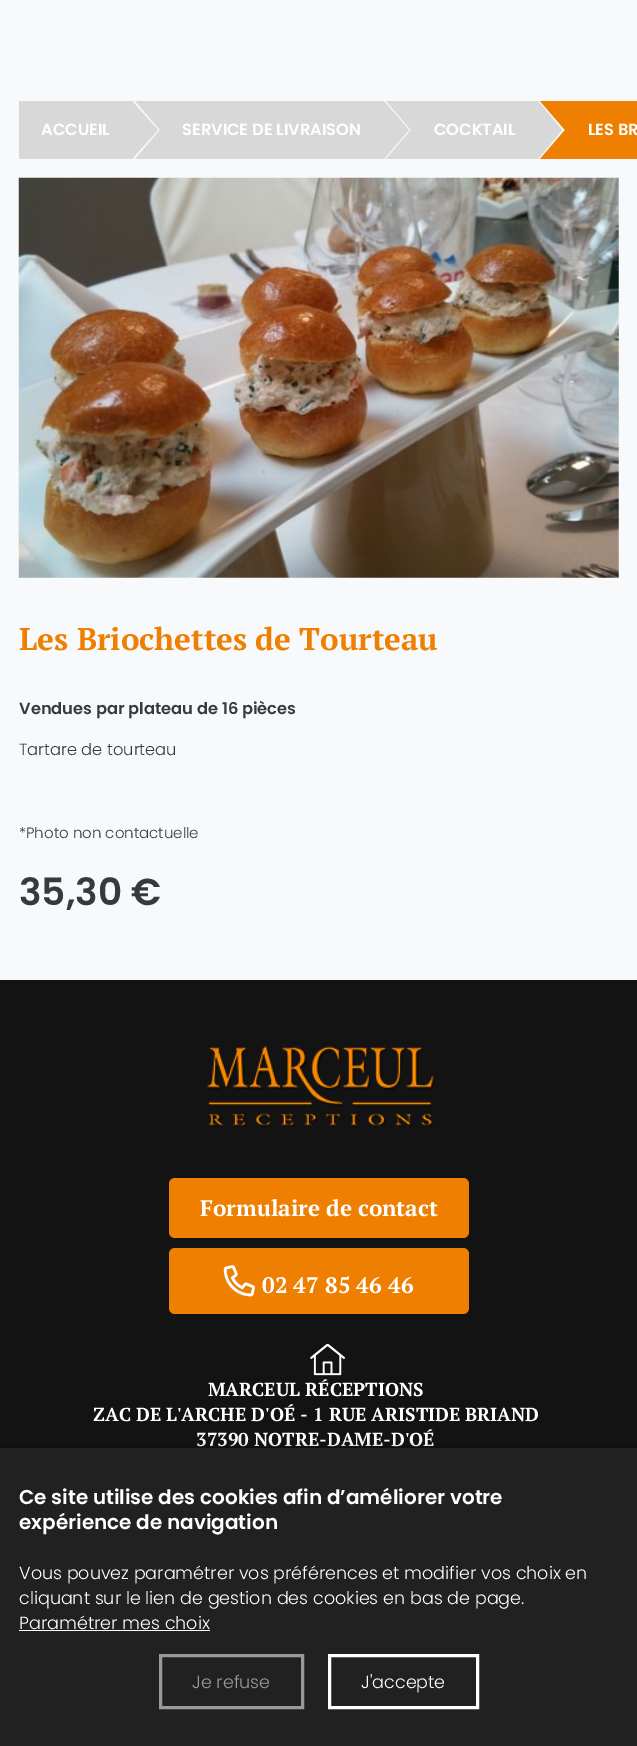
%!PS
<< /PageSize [637 1746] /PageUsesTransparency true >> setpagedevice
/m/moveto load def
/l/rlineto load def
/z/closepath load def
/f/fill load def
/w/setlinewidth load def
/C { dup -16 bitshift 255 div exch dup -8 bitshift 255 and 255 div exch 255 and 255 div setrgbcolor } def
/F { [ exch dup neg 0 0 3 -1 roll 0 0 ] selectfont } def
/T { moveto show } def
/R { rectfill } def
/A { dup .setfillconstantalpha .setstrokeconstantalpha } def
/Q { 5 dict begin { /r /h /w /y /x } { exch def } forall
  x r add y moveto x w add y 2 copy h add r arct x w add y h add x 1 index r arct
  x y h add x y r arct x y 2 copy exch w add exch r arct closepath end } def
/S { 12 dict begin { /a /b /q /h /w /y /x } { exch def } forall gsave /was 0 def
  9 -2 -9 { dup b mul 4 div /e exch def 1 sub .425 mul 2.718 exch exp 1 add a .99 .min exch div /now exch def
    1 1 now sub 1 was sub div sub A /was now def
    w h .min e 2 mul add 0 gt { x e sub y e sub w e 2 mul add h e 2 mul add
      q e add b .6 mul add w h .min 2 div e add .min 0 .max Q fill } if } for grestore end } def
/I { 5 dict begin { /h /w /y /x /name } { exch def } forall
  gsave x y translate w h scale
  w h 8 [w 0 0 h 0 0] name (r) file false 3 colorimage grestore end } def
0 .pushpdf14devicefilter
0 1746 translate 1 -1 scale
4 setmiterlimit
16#F8F9FA C
0 0 637 1746 R
16#D8D8D8 C
19 101 114 58 R
/Poppins-SemiBold 16.25 F
16#FFFFFF C
(ACCUEIL) 41 135 T
16#D8D8D8 C
132 159 m 0 -58 l 26 29 l z f
160 101 224 58 R
135 101 m 25 0 l 0 29 l z 160 159 m -25 0 l 25 -29 l z f
16#FFFFFF C
(SERVICE DE LIVRAISON) 182 135 T
16#D8D8D8 C
384 159 m 0 -58 l 25 29 l z f
411 101 127 58 R
386 101 m 25 0 l 0 29 l z 411 159 m -25 0 l 25 -29 l z f
16#FFFFFF C
(COCKTAIL) 434 135 T
16#D8D8D8 C
538 159 m 0 -58 l 24 29 l z f
16#EE7F00 C
565 101 72 58 R
540 101 m 25 0 l 0 29 l z 565 159 m -25 0 l 25 -29 l z f
16#FFFFFF C
(LES BR) 588 135 T
(1.rgb) 18 177 601 401 I
/PTSerif-Bold 31.25 F
16#EE7F00 C
(Les Briochettes de Tourteau) 19 650 T
/Poppins-SemiBold 16.25 F
16#353A3F C
(Vendues par plateau de 16 pièces) 19 714 T
/Poppins-Light 16.25 F
(Tartare de tourteau) 19 755 T
/Poppins-Light 15 F
(*Photo non contactuelle) 19 838 T
/Poppins-SemiBold 37.5 F
(35,30 €) 19 905 T
16#141313 C
0 980 637 468 R
(2.rgb) 207 1046 228 81 I
16#EE7F00 C
169 1178 300 60 6 Q f
/PTSerif-Bold 22.5 F
16#FFFFFF C
(Formulaire de contact) 200 1216 T
16#EE7F00 C
169 1248 300 66 6 Q f
(3.rgb) 223 1265 32 32 I
16#FFFFFF C
(02 47 85 46 46) 262 1293 T
(4.rgb) 310 1343 36 33 I
/PTSerif-Bold 18.75 F
(MARCEUL RÉCEPTIONS) 208 1396 T
(ZAC DE L'ARCHE D'OÉ - 1 RUE ARISTIDE BRIAND) 93 1421 T
(37390 NOTRE-DAME-D'OÉ) 196 1446 T
16#000000 C
0 1448 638 298 0 4 .4 S
16#212121 C
0 1448 637 298 R
/Poppins-SemiBold 20 F
16#FFFFFF C
(Ce site utilise des cookies afin d’améliorer votre) 19 1504 T
(expérience de navigation) 19 1529 T
/Poppins-Light 17.5 F
(Vous pouvez paramétrer vos préférences et modifier vos choix en) 19 1579 T
(cliquant sur le lien de gestion des cookies en bas de page.) 19 1604 T
(Paramétrer mes choix) 19 1629 T
19 1630 191 1 R
16#999999 C
3 w
160.5 1655.5 142 52 rectstroke
(Je refuse) 192 1688 T
16#FFFFFF C
329.5 1655.5 148 52 rectstroke
(J'accepte) 361 1688 T
.poppdf14devicefilter showpage
